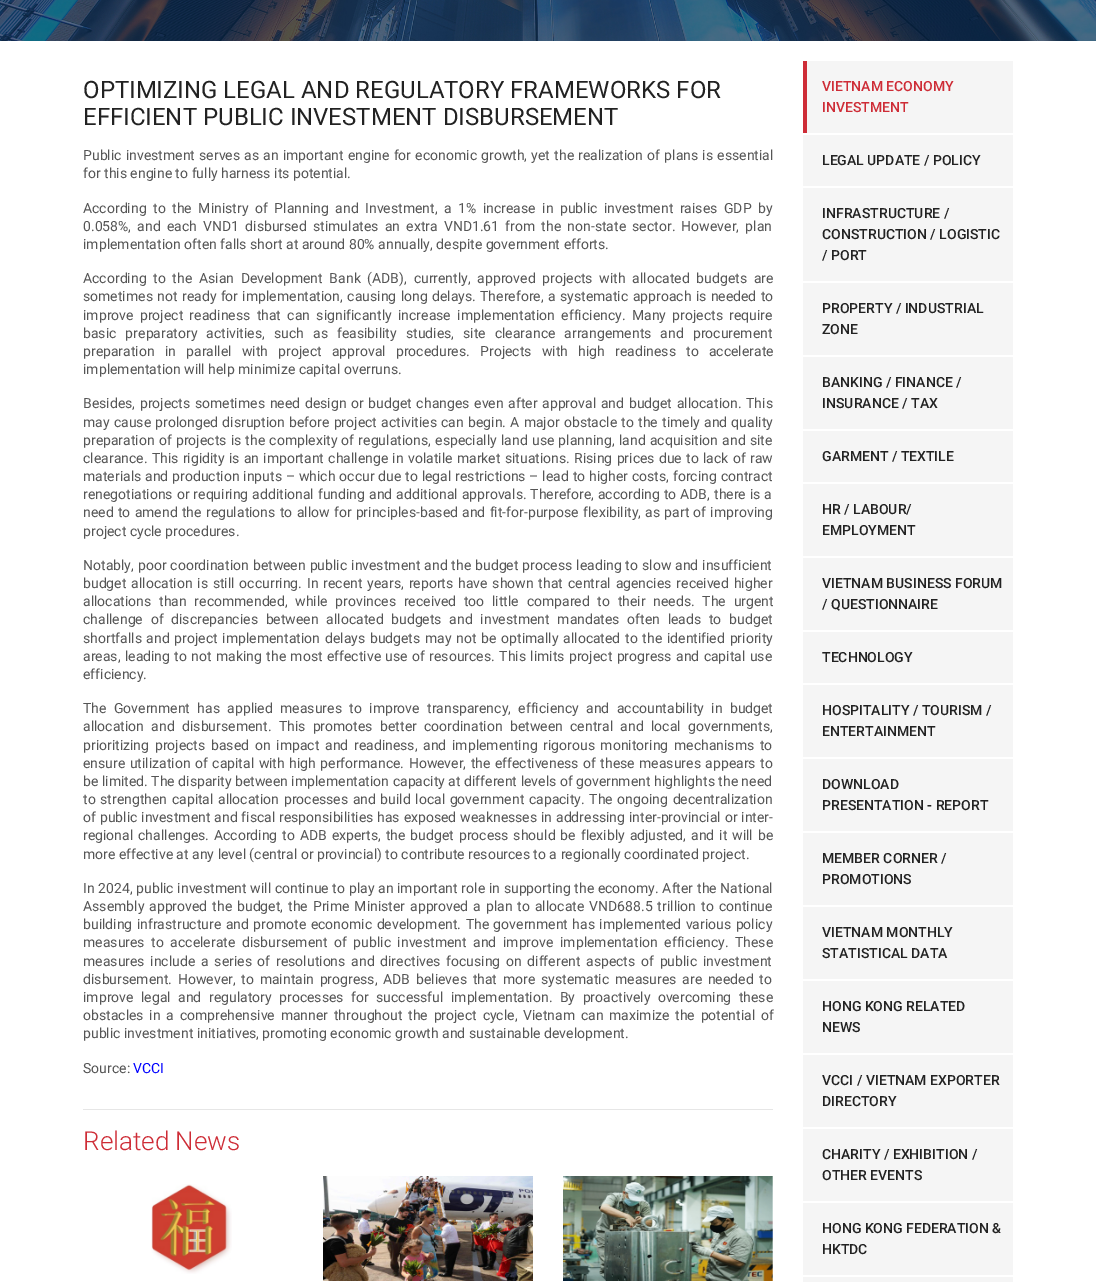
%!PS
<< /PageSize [1096 1282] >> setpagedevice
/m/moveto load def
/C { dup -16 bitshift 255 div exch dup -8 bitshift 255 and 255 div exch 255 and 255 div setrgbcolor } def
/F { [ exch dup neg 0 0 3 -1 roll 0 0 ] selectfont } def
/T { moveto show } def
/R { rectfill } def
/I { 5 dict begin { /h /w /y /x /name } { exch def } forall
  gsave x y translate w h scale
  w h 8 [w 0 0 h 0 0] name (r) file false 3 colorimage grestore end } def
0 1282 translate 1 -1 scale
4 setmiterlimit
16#FFFFFF C
0 0 1096 1282 R
(1.rgb) 0 0 1096 41 I
/Roboto-Regular 24 F
16#222222 C
(OPTIMIZING LEGAL AND REGULATORY FRAMEWORKS FOR) 83 98 T
(EFFICIENT PUBLIC INVESTMENT DISBURSEMENT) 83 125 T
/Roboto-Regular 14 F
16#555555 C
83 160 m .75 0 32 (Public investment serves as an important engine for economic growth, yet the realization of plans is essential) widthshow
(for this engine to fully harness its potential.) 83 178 T
83 213 m 3.1 0 32 (According to the Ministry of Planning and Investment, a 1% increase in public investment raises GDP by) widthshow
83 231 m 2.75 0 32 (0.058%, and each VND1 disbursed stimulates an extra VND1.61 from the non-state sector. However, plan) widthshow
(implementation often falls short at around 80% annually, despite government efforts.) 83 249 T
83 283 m 3.25 0 32 (According to the Asian Development Bank \(ADB\), currently, approved projects with allocated budgets are) widthshow
83 301 m .9 0 32 (sometimes not ready for implementation, causing long delays. Therefore, a systematic approach is needed to) widthshow
83 320 m 2.9 0 32 (improve project readiness that can significantly increase implementation efficiency. Many projects require) widthshow
83 338 m 5.6 0 32 (basic preparatory activities, such as feasibility studies, site clearance arrangements and procurement) widthshow
83 356 m 6.75 0 32 (preparation in parallel with project approval procedures. Projects with high readiness to accelerate) widthshow
(implementation will help minimize capital overruns.) 83 374 T
83 408 m 1.25 0 32 (Besides, projects sometimes need design or budget changes even after approval and budget allocation. This) widthshow
83 427 m .75 0 32 (may cause prolonged disruption before project activities can begin. A major obstacle to the timely and quality) widthshow
83 445 m .75 0 32 (preparation of projects is the complexity of regulations, especially land use planning, land acquisition and site) widthshow
83 463 m .8 0 32 (clearance. This rigidity is an important challenge in volatile market situations. Rising prices due to lack of raw) widthshow
83 481 m .4 0 32 (materials and production inputs – which occur due to legal restrictions – lead to higher costs, forcing contract) widthshow
83 499 m .5 0 32 (renegotiations or requiring additional funding and additional approvals. Therefore, according to ADB, there is a) widthshow
83 517 m .8 0 32 (need to amend the regulations to allow for principles-based and fit-for-purpose flexibility, as part of improving) widthshow
(project cycle procedures.) 83 536 T
83 570 m .5 0 32 (Notably, poor coordination between public investment and the budget process leading to slow and insufficient) widthshow
83 588 m 1.4 0 32 (budget allocation is still occurring. In recent years, reports have shown that central agencies received higher) widthshow
83 606 m 4.25 0 32 (allocations than recommended, while provinces received too little compared to their needs. The urgent) widthshow
83 624 m 4.25 0 32 (challenge of discrepancies between allocated budgets and investment mandates often leads to budget) widthshow
83 643 m 1.25 0 32 (shortfalls and project implementation delays budgets may not be optimally allocated to the identified priority) widthshow
83 661 m .9 0 32 (areas, leading to not making the most effective use of resources. This limits project progress and capital use) widthshow
(efficiency.) 83 679 T
83 713 m 3.9 0 32 (The Government has applied measures to improve transparency, efficiency and accountability in budget) widthshow
83 731 m 3.9 0 32 (allocation and disbursement. This promotes better coordination between central and local governments,) widthshow
83 750 m 2.25 0 32 (prioritizing projects based on impact and readiness, and implementing rigorous monitoring mechanisms to) widthshow
83 768 m 1 0 32 (ensure utilization of capital with high performance. However, the effectiveness of these measures appears to) widthshow
(be limited. The disparity between implementation capacity at different levels of government highlights the need) 83 786 T
83 804 m 1.1 0 32 (to strengthen capital allocation processes and build local government capacity. The ongoing decentralization) widthshow
83 822 m .4 0 32 (of public investment and fiscal responsibilities has exposed weaknesses in addressing inter-provincial or inter-) widthshow
83 840 m 1.5 0 32 (regional challenges. According to ADB experts, the budget process should be flexibly adjusted, and it will be) widthshow
(more effective at any level \(central or provincial\) to contribute resources to a regionally coordinated project.) 83 859 T
83 893 m .25 0 32 (In 2024, public investment will continue to play an important role in supporting the economy. After the National) widthshow
83 911 m 1.5 0 32 (Assembly approved the budget, the Prime Minister approved a plan to allocate VND688.5 trillion to continue) widthshow
83 929 m 1 0 32 (building infrastructure and promote economic development. The government has implemented various policy) widthshow
83 947 m 3.1 0 32 (measures to accelerate disbursement of public investment and improve implementation efficiency. These) widthshow
83 966 m 2.25 0 32 (measures include a series of resolutions and directives focusing on different aspects of public investment) widthshow
83 984 m 2.25 0 32 (disbursement. However, to maintain progress, ADB believes that more systematic measures are needed to) widthshow
83 1002 m 4 0 32 (improve legal and regulatory processes for successful implementation. By proactively overcoming these) widthshow
83 1020 m 2.25 0 32 (obstacles in a comprehensive manner throughout the project cycle, Vietnam can maximize the potential of) widthshow
(public investment initiatives, promoting economic growth and sustainable development.) 83 1038 T
(Source:) 83 1073 T
16#0000FF C
(VCCI) 133 1073 T
16#E6E6E6 C
83 1109 690 1 R
/Roboto-Light 26 F
16#CE2C36 C
(Related News) 83 1150 T
(2.rgb) 151 1184 81 90 I
(3.rgb) 323 1176 210 105 I
(4.rgb) 563 1176 210 105 I
16#F5F5F5 C
807 61 206 72 R
16#CE2C37 C
803 61 4 72 R
/Roboto-Medium 14 F
16#CE2C36 C
(VIETNAM ECONOMY) 822 91 T
(INVESTMENT) 822 112 T
16#F5F5F5 C
803 135 210 51 R
16#222222 C
(LEGAL UPDATE / POLICY) 822 165 T
16#F5F5F5 C
803 188 210 93 R
16#222222 C
(INFRASTRUCTURE /) 822 218 T
(CONSTRUCTION / LOGISTIC) 822 239 T
(/ PORT) 822 260 T
16#F5F5F5 C
803 283 210 72 R
16#222222 C
(PROPERTY / INDUSTRIAL) 822 313 T
(ZONE) 822 334 T
16#F5F5F5 C
803 357 210 72 R
16#222222 C
(BANKING / FINANCE /) 822 387 T
(INSURANCE / TAX) 822 408 T
16#F5F5F5 C
803 431 210 51 R
16#222222 C
(GARMENT / TEXTILE) 822 461 T
16#F5F5F5 C
803 484 210 72 R
16#222222 C
(HR / LABOUR/) 822 514 T
(EMPLOYMENT) 822 535 T
16#F5F5F5 C
803 558 210 72 R
16#222222 C
(VIETNAM BUSINESS FORUM) 822 588 T
(/ QUESTIONNAIRE) 822 609 T
16#F5F5F5 C
803 632 210 51 R
16#222222 C
(TECHNOLOGY) 822 662 T
16#F5F5F5 C
803 685 210 72 R
16#222222 C
(HOSPITALITY / TOURISM /) 822 715 T
(ENTERTAINMENT) 822 736 T
16#F5F5F5 C
803 759 210 72 R
16#222222 C
(DOWNLOAD) 822 789 T
(PRESENTATION - REPORT) 822 810 T
16#F5F5F5 C
803 833 210 72 R
16#222222 C
(MEMBER CORNER /) 822 863 T
(PROMOTIONS) 822 884 T
16#F5F5F5 C
803 907 210 72 R
16#222222 C
(VIETNAM MONTHLY) 822 937 T
(STATISTICAL DATA) 822 958 T
16#F5F5F5 C
803 981 210 72 R
16#222222 C
(HONG KONG RELATED) 822 1011 T
(NEWS) 822 1032 T
16#F5F5F5 C
803 1055 210 72 R
16#222222 C
(VCCI / VIETNAM EXPORTER) 822 1085 T
(DIRECTORY) 822 1106 T
16#F5F5F5 C
803 1129 210 72 R
16#222222 C
(CHARITY / EXHIBITION /) 822 1159 T
(OTHER EVENTS) 822 1180 T
16#F5F5F5 C
803 1203 210 72 R
16#222222 C
(HONG KONG FEDERATION &) 822 1233 T
(HKTDC) 822 1254 T
16#F5F5F5 C
803 1277 210 5 R
showpage
